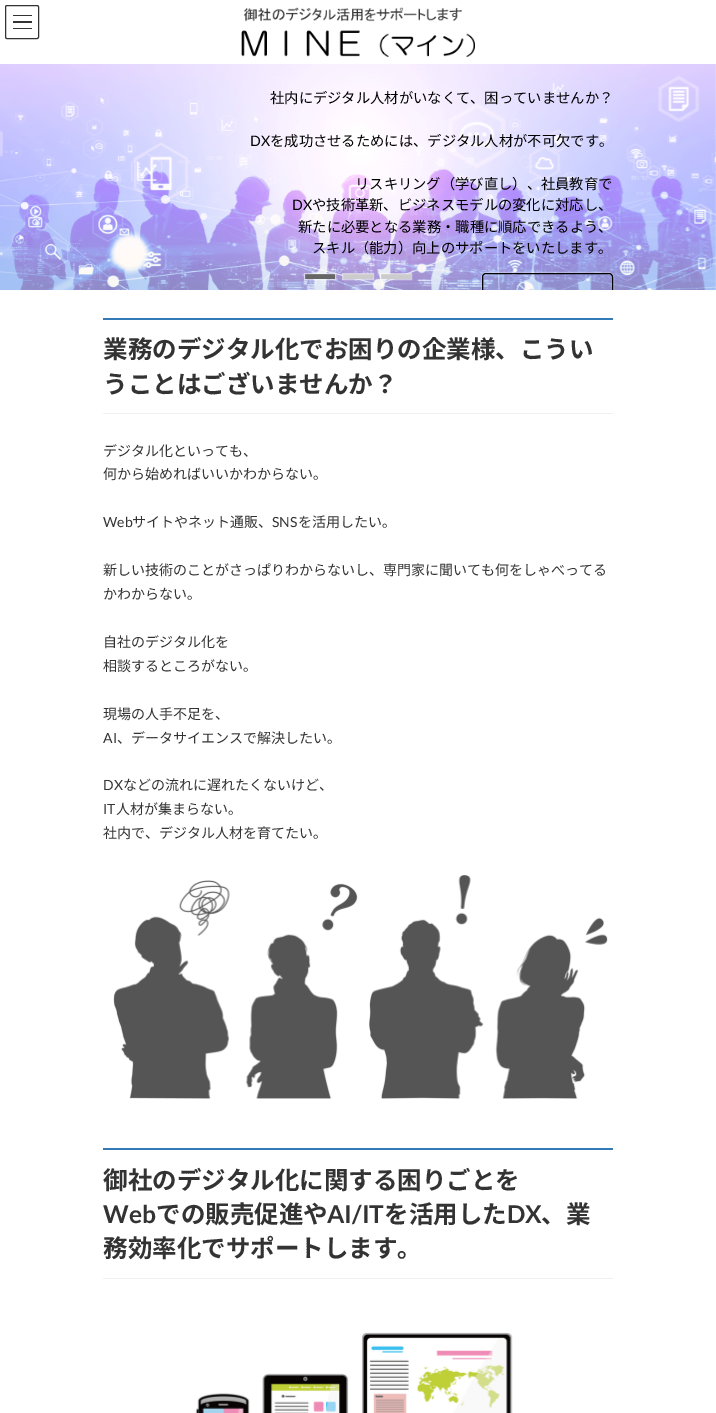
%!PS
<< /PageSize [716 1413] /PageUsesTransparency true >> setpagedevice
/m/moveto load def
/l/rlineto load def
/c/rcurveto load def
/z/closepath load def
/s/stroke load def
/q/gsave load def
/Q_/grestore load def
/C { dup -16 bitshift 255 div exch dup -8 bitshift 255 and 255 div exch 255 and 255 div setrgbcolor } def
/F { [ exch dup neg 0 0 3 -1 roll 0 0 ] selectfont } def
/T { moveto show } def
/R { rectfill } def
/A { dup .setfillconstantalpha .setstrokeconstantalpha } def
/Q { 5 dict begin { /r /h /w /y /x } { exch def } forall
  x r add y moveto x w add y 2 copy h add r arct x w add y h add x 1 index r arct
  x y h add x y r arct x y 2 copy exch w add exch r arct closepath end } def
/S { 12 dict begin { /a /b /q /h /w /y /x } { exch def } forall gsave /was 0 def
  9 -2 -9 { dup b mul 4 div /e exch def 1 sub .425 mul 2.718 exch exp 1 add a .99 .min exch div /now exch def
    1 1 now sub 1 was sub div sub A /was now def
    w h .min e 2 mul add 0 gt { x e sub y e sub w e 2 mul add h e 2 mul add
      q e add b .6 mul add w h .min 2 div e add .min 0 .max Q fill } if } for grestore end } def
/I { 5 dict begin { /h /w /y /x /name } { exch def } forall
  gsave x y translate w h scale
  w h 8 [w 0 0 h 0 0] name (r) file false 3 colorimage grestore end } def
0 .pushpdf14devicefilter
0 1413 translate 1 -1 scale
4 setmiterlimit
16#FFFFFF C
0 0 716 1413 R
16#333333 C
13 15 19 1 R
13 21 19 2 R
13 28 19 1 R
5.5 5.5 33 33 1.5 Q s
(1.rgb) 241 7 234 50 I
(2.rgb) 0 64 716 226 I
/NotoSansJP-Regular 14.3 F
16#000000 C
(社内にデジタル人材がいなくて、困っていませんか？) 270 103 T
/Lato-Regular 14.3 F
(DX) 250 146 T
/NotoSansJP-Regular 14.3 F
(を成功させるためには、デジタル人材が不可欠です。) 270 146 T
(リスキリング（学び直し）、社員教育で) 355 189 T
/Lato-Regular 14.3 F
(DX) 292 210 T
/NotoSansJP-Regular 14.3 F
(や技術革新、ビジネスモデルの変化に対応し、) 312 210 T
(新たに必要となる業務・職種に順応できるよう、) 298 232 T
(スキル（能力）向上のサポートをいたします。) 312 253 T
q
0 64 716 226 rectclip
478 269 m 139 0 l 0 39 l -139 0 l z 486 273 m 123 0 l 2 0 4 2 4 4 c 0 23 l 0 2 -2 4 -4 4 c -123 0 l -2 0 -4 -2 -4 -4 c 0 -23 l 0 -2 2 -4 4 -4 c z eoclip newpath
16#FFFFFF C
482 273 131 31 4 1 1 S
Q_
q
0 64 716 226 rectclip
482.5 273.5 130 30 3.5 Q s
Q_
16#666666 C
305 274 30 5 R
0.5 A
16#FFFFFF C
304.5 273.5 31 6 rectstroke
1 A
16#CCCCCC C
343 274 30 5 R
0.5 A
16#FFFFFF C
342.5 273.5 31 6 rectstroke
1 A
16#CCCCCC C
381 274 30 5 R
0.5 A
16#FFFFFF C
380.5 273.5 31 6 rectstroke
1 A
16#337AB7 C
103 318 510 2 R
16#F0F0F0 C
103 413 510 1 R
/NotoSansJP-Bold 24.5 F
16#333333 C
(業務のデジタル化でお困りの企業様、こうい) 103 358 T
(うことはございませんか？) 103 393 T
/NotoSansJP-Regular 14 F
(デジタル化といっても、) 103 456 T
(何から始めればいいかわからない。) 103 479 T
/Lato-Regular 14 F
(Web) 103 527 T
/NotoSansJP-Regular 14 F
(サイトやネット通販、) 132 527 T
/Lato-Regular 14 F
(SNS) 272 527 T
/NotoSansJP-Regular 14 F
(を活用したい。) 298 527 T
(新しい技術のことがさっぱりわからないし、専門家に聞いても何をしゃべってる) 103 575 T
(かわからない。) 103 599 T
(自社のデジタル化を) 103 647 T
(相談するところがない。) 103 671 T
(現場の人手不足を、) 103 719 T
/Lato-Regular 14 F
(AI) 103 743 T
/NotoSansJP-Regular 14 F
(、データサイエンスで解決したい。) 117 743 T
/Lato-Regular 14 F
(DX) 103 790 T
/NotoSansJP-Regular 14 F
(などの流れに遅れたくないけど、) 123 790 T
/Lato-Regular 14 F
(IT) 103 814 T
/NotoSansJP-Regular 14 F
(人材が集まらない。) 116 814 T
(社内で、デジタル人材を育てたい。) 103 838 T
(3.rgb) 113 875 495 224 I
16#337AB7 C
103 1148 510 2 R
16#F0F0F0 C
103 1278 510 1 R
/NotoSansJP-Bold 24.5 F
16#333333 C
(御社のデジタル化に関する困りごとを) 103 1189 T
/Lato-Bold 24.5 F
(Web) 103 1223 T
/NotoSansJP-Bold 24.5 F
(での販売促進や) 156 1223 T
/Lato-Bold 24.5 F
(AI/IT) 327 1223 T
/NotoSansJP-Bold 24.5 F
(を活用した) 384 1223 T
/Lato-Bold 24.5 F
(DX) 507 1223 T
/NotoSansJP-Bold 24.5 F
(、業) 541 1223 T
(務効率化でサポートします。) 103 1257 T
(4.rgb) 195 1332 318 81 I
.poppdf14devicefilter showpage
